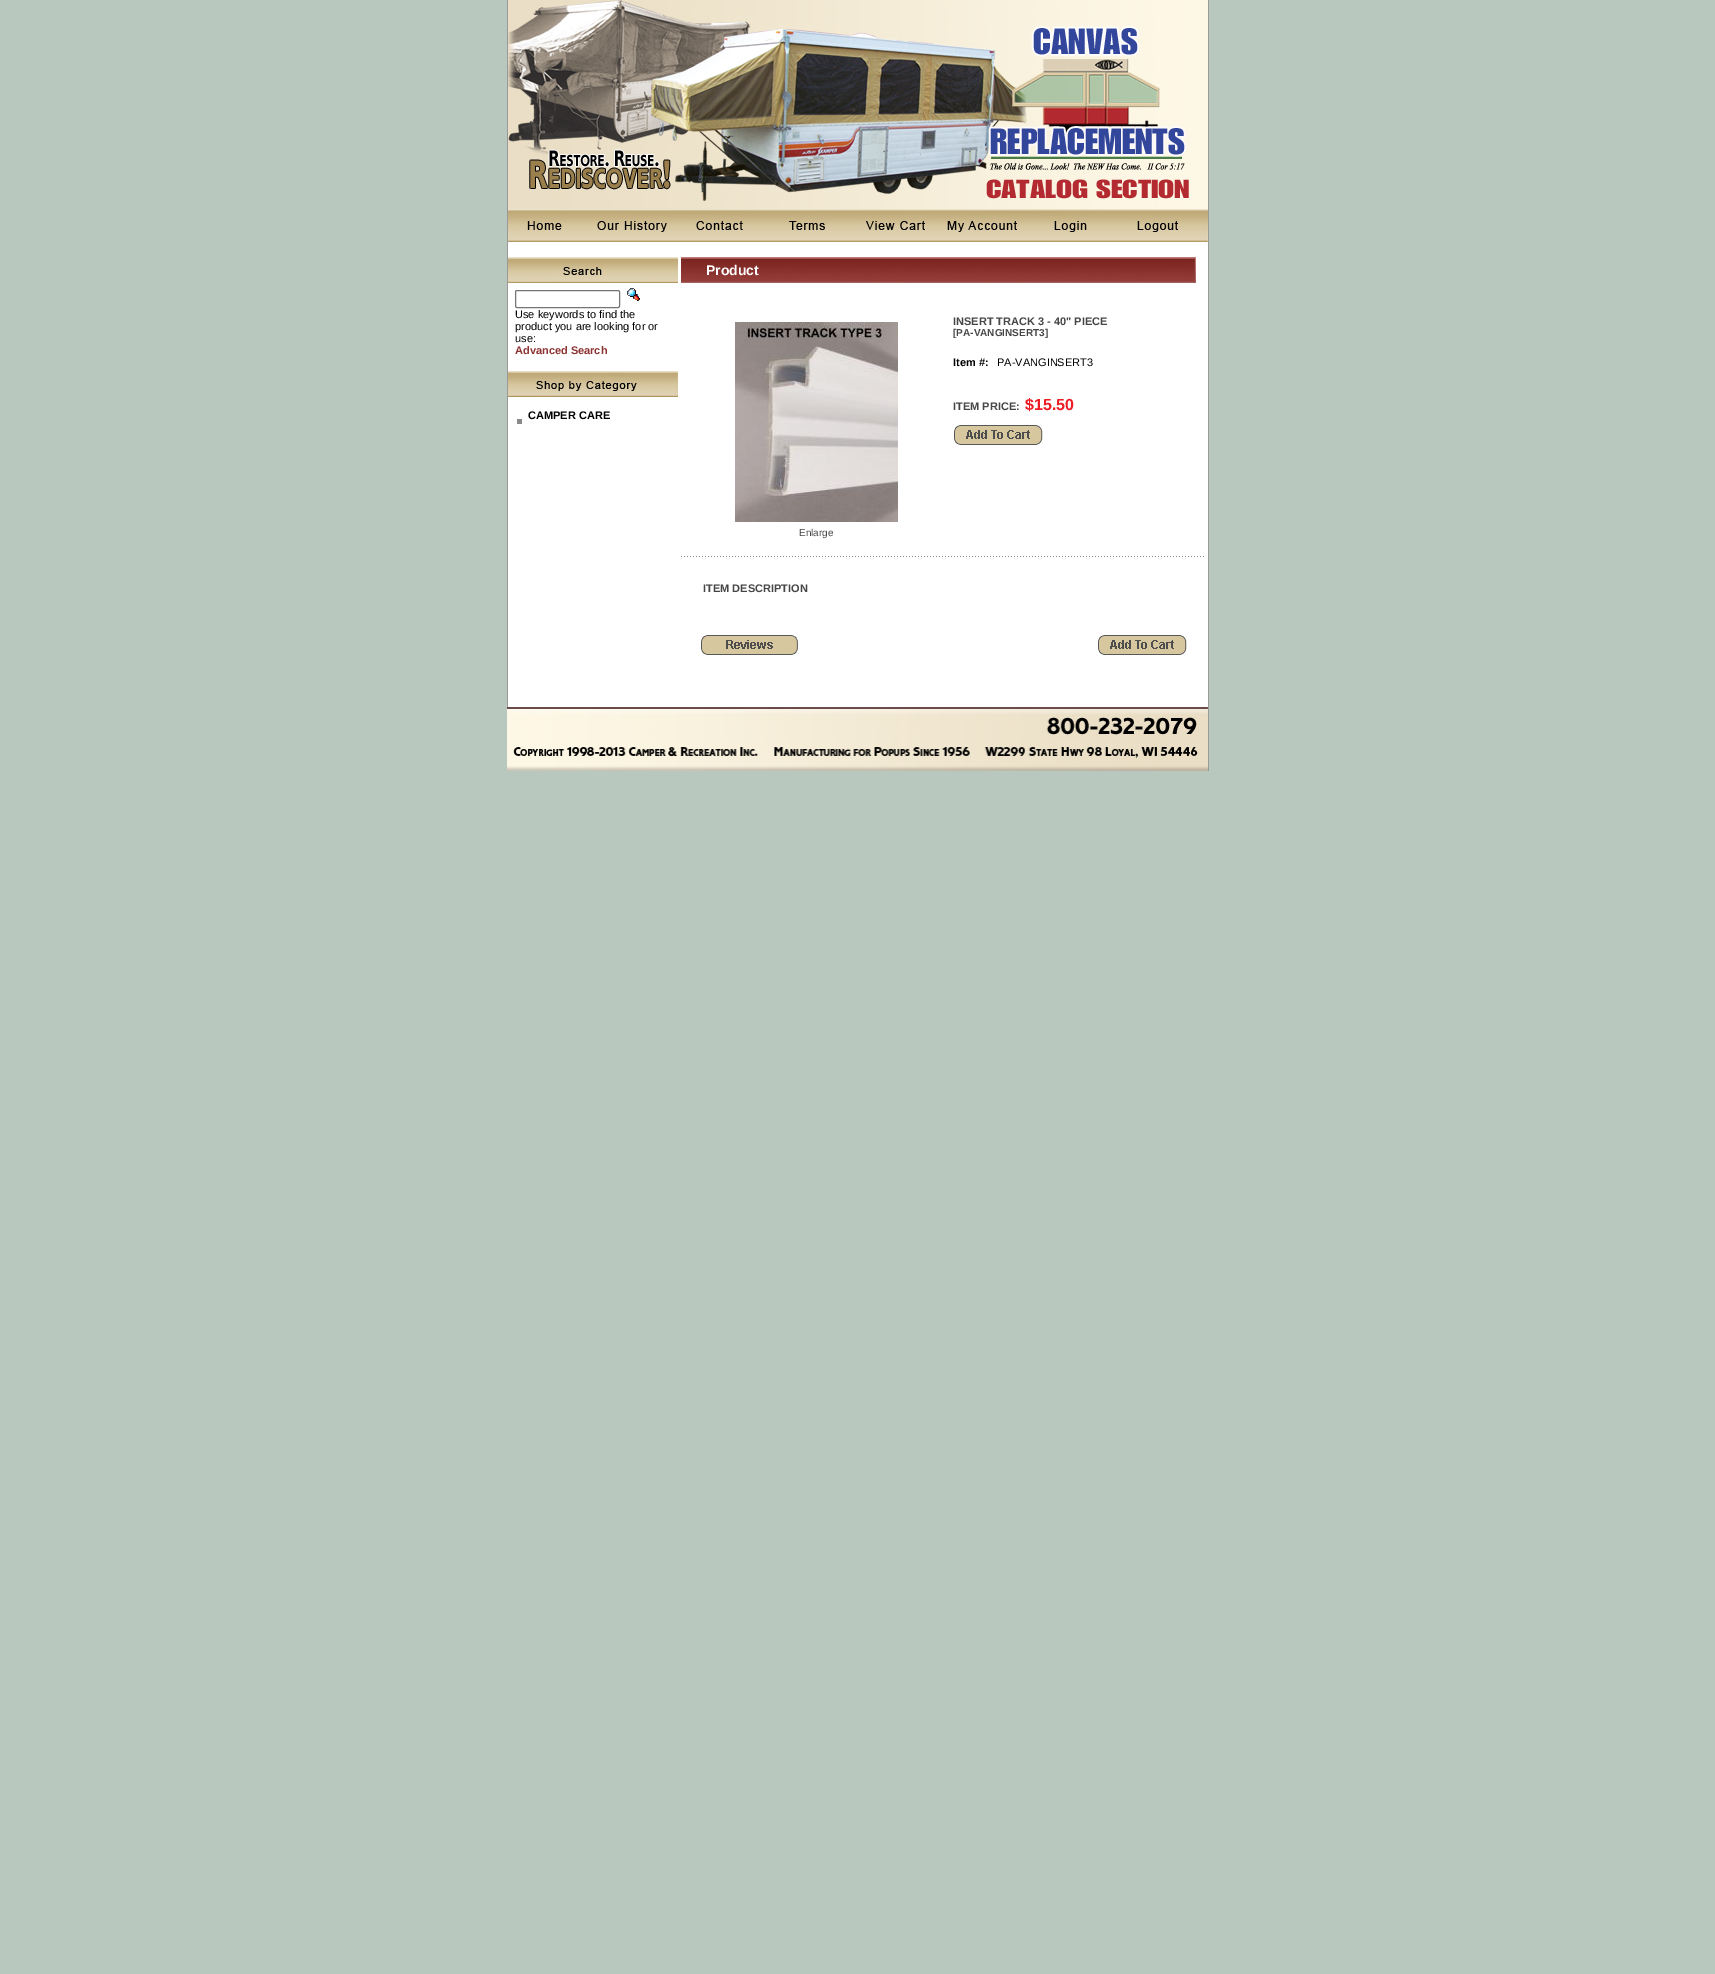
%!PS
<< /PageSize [1715 1974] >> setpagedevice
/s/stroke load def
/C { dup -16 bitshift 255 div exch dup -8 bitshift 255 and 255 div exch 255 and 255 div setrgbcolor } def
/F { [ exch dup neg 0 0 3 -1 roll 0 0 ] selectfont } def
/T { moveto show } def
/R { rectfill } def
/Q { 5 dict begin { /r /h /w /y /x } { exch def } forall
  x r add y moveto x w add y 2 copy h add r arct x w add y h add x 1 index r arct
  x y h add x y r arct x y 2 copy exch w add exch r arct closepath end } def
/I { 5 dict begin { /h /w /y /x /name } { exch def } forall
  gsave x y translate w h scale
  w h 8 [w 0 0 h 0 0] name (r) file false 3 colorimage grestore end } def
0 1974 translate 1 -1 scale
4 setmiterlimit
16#B8C8BE C
0 0 1715 1974 R
16#FFFFFF C
508 243 700 464 R
16#999999 C
507 0 1 707 R
(1.rgb) 508 0 700 209 I
(2.rgb) 508 209 700 34 I
(3.rgb) 508 257 170 26 I
16#767676 C
515.5 290.5 104 17 1.5 Q s
(4.rgb) 627 288 13 13 I
/LiberationSans-Regular 11 F
16#000000 C
(Use keywords to find the) 515 318 T
(product you are looking for or) 515 330 T
(use:) 515 342 T
/LiberationSans-Bold 11 F
16#8C3432 C
(Advanced Search) 515 354 T
(5.rgb) 508 371 170 26 I
16#000000 C
(CAMPER CARE) 528 419 T
16#898989 C
517 419 5 5 R
(6.rgb) 681 257 515 26 I
/LiberationSans-Bold 14 F
16#FFFFFF C
(Product) 706 275 T
/LiberationSans-Bold 11 F
16#464646 C
(INSERT TRACK 3 - 40" PIECE) 953 325 T
/LiberationSans-Bold 10 F
([PA-VANGINSERT3]) 953 336 T
/LiberationSans-Bold 11 F
16#000000 C
(Item #:) 953 366 T
/LiberationSans-Regular 11 F
(PA-VANGINSERT3) 997 366 T
/LiberationSans-Bold 11 F
16#464646 C
(ITEM PRICE:) 953 410 T
/LiberationSans-Bold 16 F
16#ED1B23 C
($15.50) 1025 410 T
(7.rgb) 954 425 89 20 I
(8.rgb) 735 322 163 200 I
/LiberationSans-Regular 10 F
16#464646 C
(Enlarge) 799 536 T
(9.rgb) 681 556 523 1 I
/LiberationSans-Bold 11 F
(ITEM DESCRIPTION) 703 592 T
(10.rgb) 701 635 97 20 I
(7.rgb) 1098 635 89 20 I
(11.rgb) 507 707 701 64 I
16#999999 C
1208 0 1 771 R
showpage
